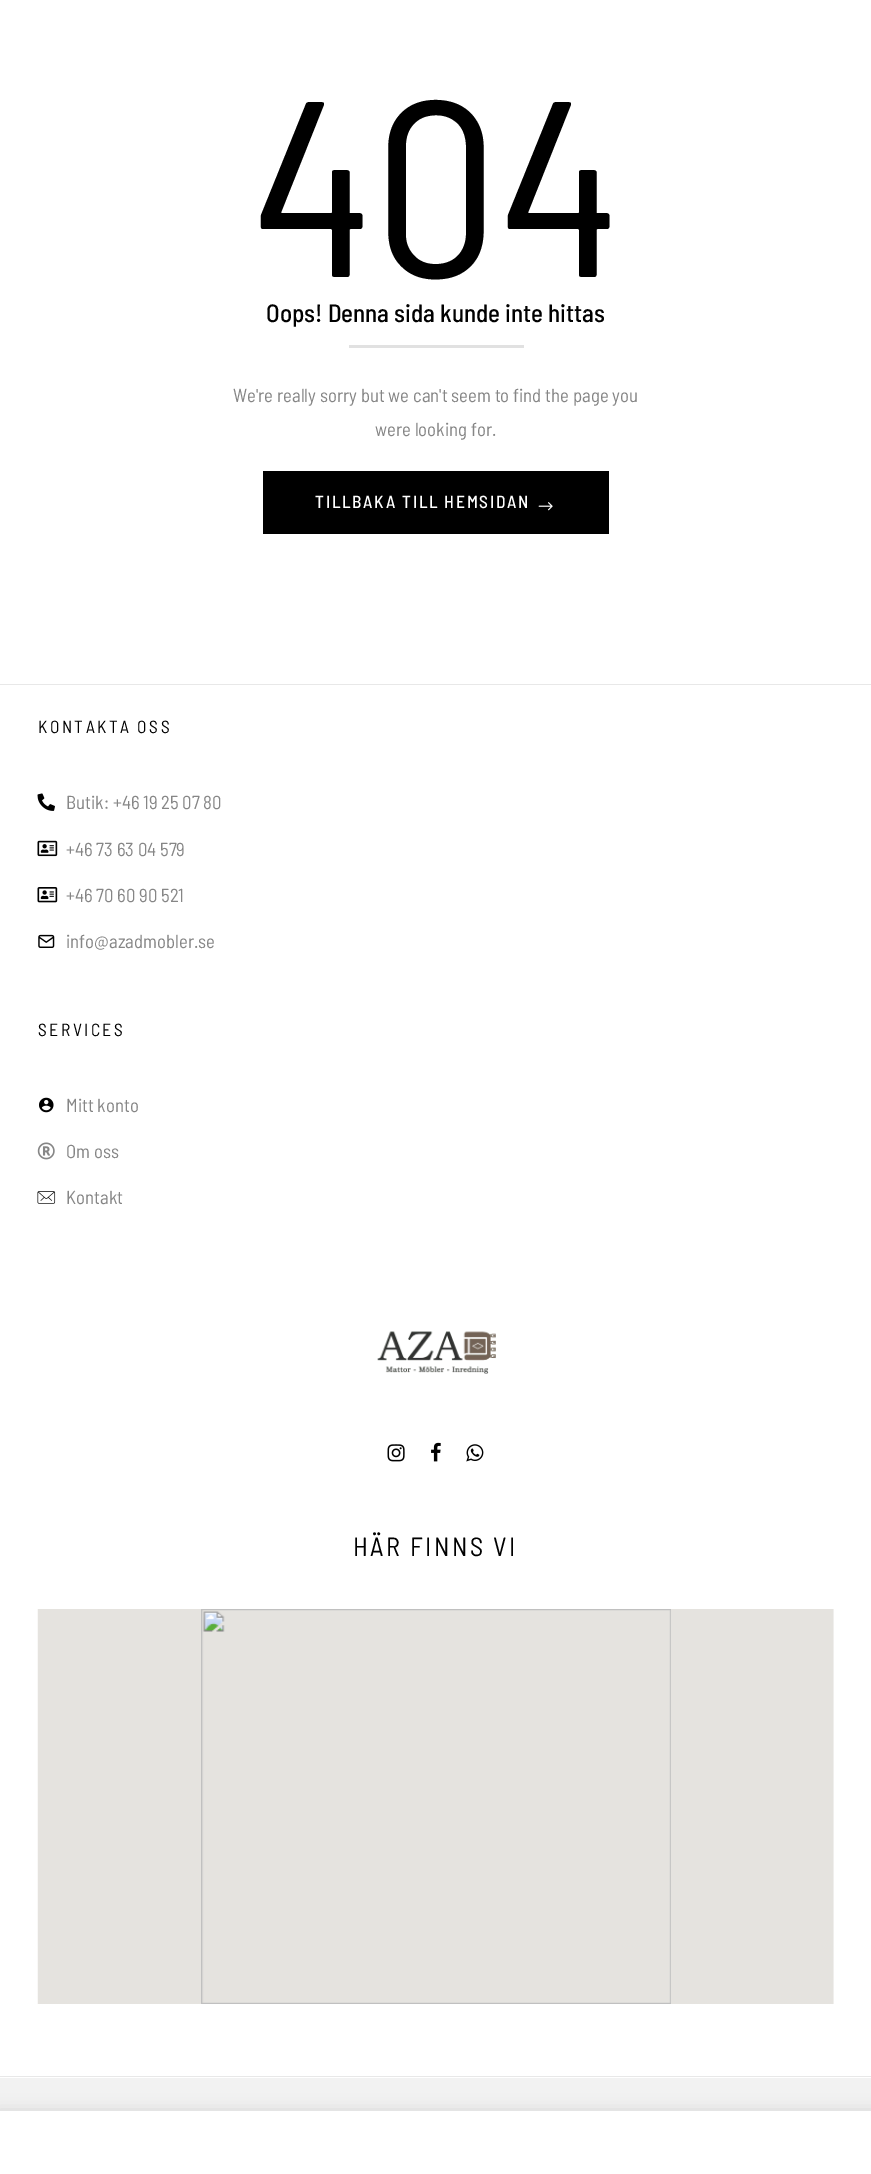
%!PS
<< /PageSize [871 2174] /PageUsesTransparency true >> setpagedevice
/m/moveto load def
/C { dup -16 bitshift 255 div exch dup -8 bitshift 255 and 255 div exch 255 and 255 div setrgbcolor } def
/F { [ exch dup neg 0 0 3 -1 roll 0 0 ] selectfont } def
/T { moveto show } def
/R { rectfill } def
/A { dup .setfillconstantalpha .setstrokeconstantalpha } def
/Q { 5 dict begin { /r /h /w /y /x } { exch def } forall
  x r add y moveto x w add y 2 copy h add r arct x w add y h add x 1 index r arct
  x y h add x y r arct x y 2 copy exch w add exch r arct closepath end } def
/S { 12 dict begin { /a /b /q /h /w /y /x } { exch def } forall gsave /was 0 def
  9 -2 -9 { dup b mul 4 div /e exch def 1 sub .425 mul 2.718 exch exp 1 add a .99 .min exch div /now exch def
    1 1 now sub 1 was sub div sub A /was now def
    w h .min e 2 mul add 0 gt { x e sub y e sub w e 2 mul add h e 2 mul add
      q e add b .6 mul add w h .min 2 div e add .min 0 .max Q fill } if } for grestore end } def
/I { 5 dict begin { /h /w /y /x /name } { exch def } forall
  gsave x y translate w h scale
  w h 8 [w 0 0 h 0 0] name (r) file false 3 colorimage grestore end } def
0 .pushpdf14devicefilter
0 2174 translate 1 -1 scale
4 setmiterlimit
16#FFFFFF C
0 0 871 2174 R
/BarlowSemiCondensed-Regular 250 F
16#000000 C
(404) 252 277 T
/BarlowSemiCondensed-Medium 25 F
(Oops! Denna sida kunde inte hittas) 266 322 T
16#E1E1E1 C
349 345 175 3 R
/BarlowSemiCondensed-Regular 18.75 F
16#868686 C
(We're really sorry but we can't seem to find the page you) 233 402 T
(were looking for.) 375 436 T
16#000000 C
263 471 346 63 R
/BarlowSemiCondensed-Medium 17.5 F
16#FFFFFF C
315 508 m 1.75 0 (TILLBAKA TILL HEMSIDAN) ashow
(1.rgb) 538 502 15 9 I
16#E8E8E8 C
0 684 871 1 R
0 2076 871 1 R
/BarlowSemiCondensed-Regular 17.5 F
16#000000 C
38 733 m 2.5 0 (KONTAKTA OSS) ashow
(2.rgb) 37 793 18 18 I
/BarlowSemiCondensed-Regular 18.75 F
16#868686 C
(Butik: +46 19 25 07 80) 66 809 T
(3.rgb) 37 840 21 17 I
(+46 73 63 04 579) 66 856 T
(4.rgb) 37 887 21 16 I
(+46 70 60 90 521) 66 902 T
(5.rgb) 38 934 17 14 I
(info@azadmobler.se) 66 948 T
/BarlowSemiCondensed-Regular 17.5 F
16#000000 C
38 1036 m 2.5 0 (SERVICES) ashow
(6.rgb) 39 1097 15 16 I
/BarlowSemiCondensed-Regular 18.75 F
16#868686 C
(Mitt konto) 66 1112 T
(7.rgb) 37 1142 18 18 I
(Om oss) 66 1158 T
(8.rgb) 37 1191 19 13 I
(Kontakt) 66 1204 T
(9.rgb) 377 1331 119 43 I
(10.rgb) 387 1444 18 18 I
(11.rgb) 431 1442 10 20 I
(12.rgb) 466 1444 18 18 I
/BarlowSemiCondensed-Regular 26.25 F
16#000000 C
353 1556 m 2.5 0 (HÄR FINNS VI) ashow
(13.rgb) 37 1609 797 395 I
16#F2F2F2 C
0 2078 871 33 R
16#8F8F8F C
-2 2110 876 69 0 7.5 .3 S
16#FFFFFF C
0 2111 871 63 R
.poppdf14devicefilter showpage
